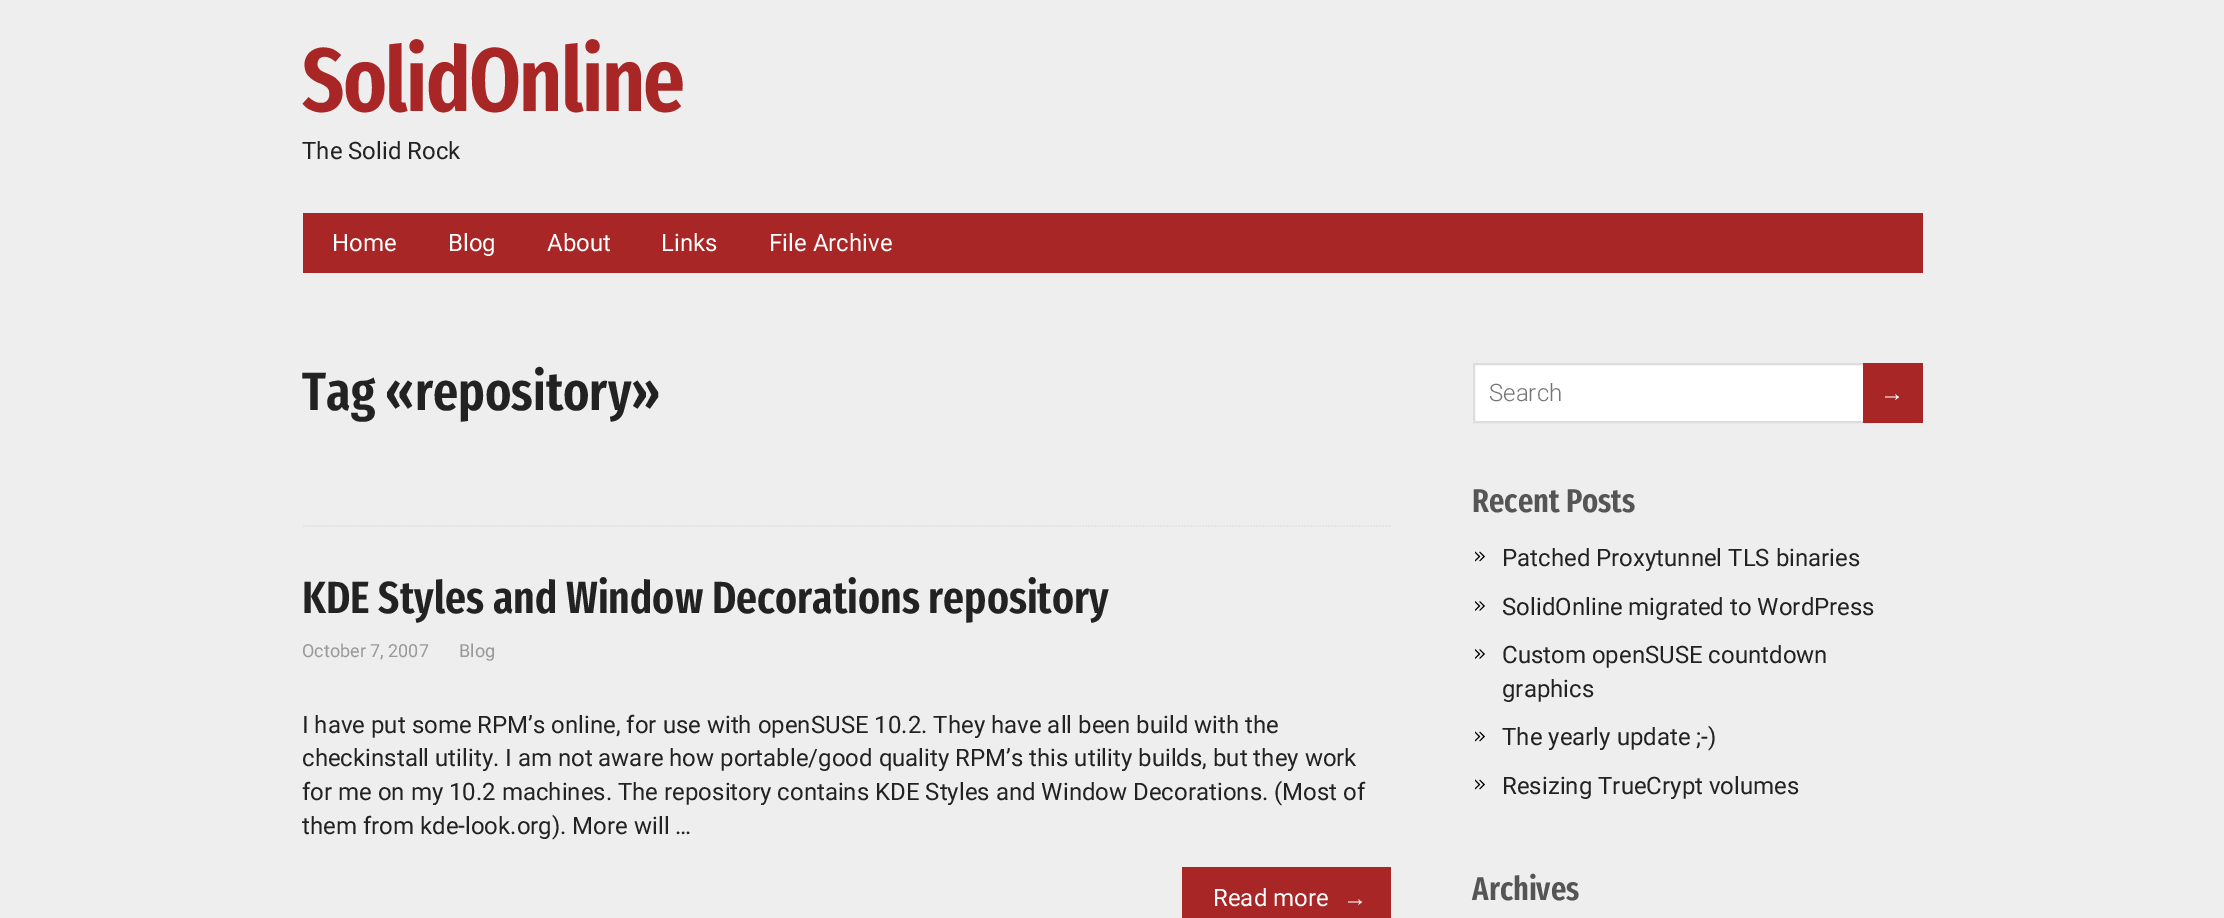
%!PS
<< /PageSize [2224 918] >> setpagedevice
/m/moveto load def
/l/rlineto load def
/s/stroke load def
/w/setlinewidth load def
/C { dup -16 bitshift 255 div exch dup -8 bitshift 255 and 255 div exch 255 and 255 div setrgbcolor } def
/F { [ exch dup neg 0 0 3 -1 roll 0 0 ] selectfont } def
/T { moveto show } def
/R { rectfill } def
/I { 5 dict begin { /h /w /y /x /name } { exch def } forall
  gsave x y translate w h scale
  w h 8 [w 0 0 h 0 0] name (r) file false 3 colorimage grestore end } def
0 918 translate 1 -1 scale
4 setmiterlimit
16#EEEEEE C
0 0 2224 918 R
/FiraSansExtraCondensed-SemiBold 90 F
16#A82626 C
302 111 m -1.75 0 (SolidOnline) ashow
/Roboto-Regular 24 F
16#222222 C
(The Solid Rock) 302 159 T
16#A82626 C
303 213 1620 60 R
16#FFFFFF C
(Home) 332 251 T
(Blog) 448 251 T
(About) 547 251 T
(Links) 661 251 T
(File Archive) 769 251 T
16#E2E2E2 C
1.5 w
[1.5 1.5] 0 setdash
303 526 m 1087.5 0 l s
/FiraSansExtraCondensed-SemiBold 54 F
16#222222 C
(Tag «repository») 302 410 T
/FiraSansExtraCondensed-SemiBold 45 F
(KDE Styles and Window Decorations repository) 302 613 T
/Roboto-Regular 18 F
16#999999 C
(October 7, 2007) 302 657 T
(Blog) 459 657 T
/Roboto-Regular 24 F
16#222222 C
(I have put some RPM’s online, for use with openSUSE 10.2. They have all been build with the) 302 733 T
(checkinstall utility. I am not aware how portable/good quality RPM’s this utility builds, but they work) 302 766 T
(for me on my 10.2 machines. The repository contains KDE Styles and Window Decorations. \(Most of) 302 800 T
(them from kde-look.org\). More will …) 302 834 T
16#A82626 C
1182 867 209 51 R
16#FFFFFF C
(Read more) 1213 906 T
/LiberationSans-Regular 24 F
(→) 1343 906 T
1475 365 388 56 R
16#DDDDDD C
2 w
[] 0 setdash
1474 364 436 58 rectstroke
/Roboto-Light 24 F
16#757575 C
(Search) 1489 401 T
16#A82626 C
1863 363 60 60 R
/LiberationSans-Regular 24 F
16#FFFFFF C
(→) 1880 401 T
/FiraSansExtraCondensed-SemiBold 33 F
16#555555 C
(Recent Posts) 1472 512 T
(1.rgb) 1475 551 10 11 I
/Roboto-Regular 24 F
16#222222 C
(Patched Proxytunnel TLS binaries) 1502 566 T
(2.rgb) 1475 601 10 10 I
(SolidOnline migrated to WordPress) 1502 615 T
(2.rgb) 1475 649 10 10 I
(Custom openSUSE countdown) 1502 663 T
(graphics) 1502 697 T
(1.rgb) 1475 731 10 11 I
(The yearly update ;-\)) 1502 745 T
(1.rgb) 1475 779 10 11 I
(Resizing TrueCrypt volumes) 1502 794 T
/FiraSansExtraCondensed-SemiBold 33 F
16#555555 C
(Archives) 1472 900 T
showpage
